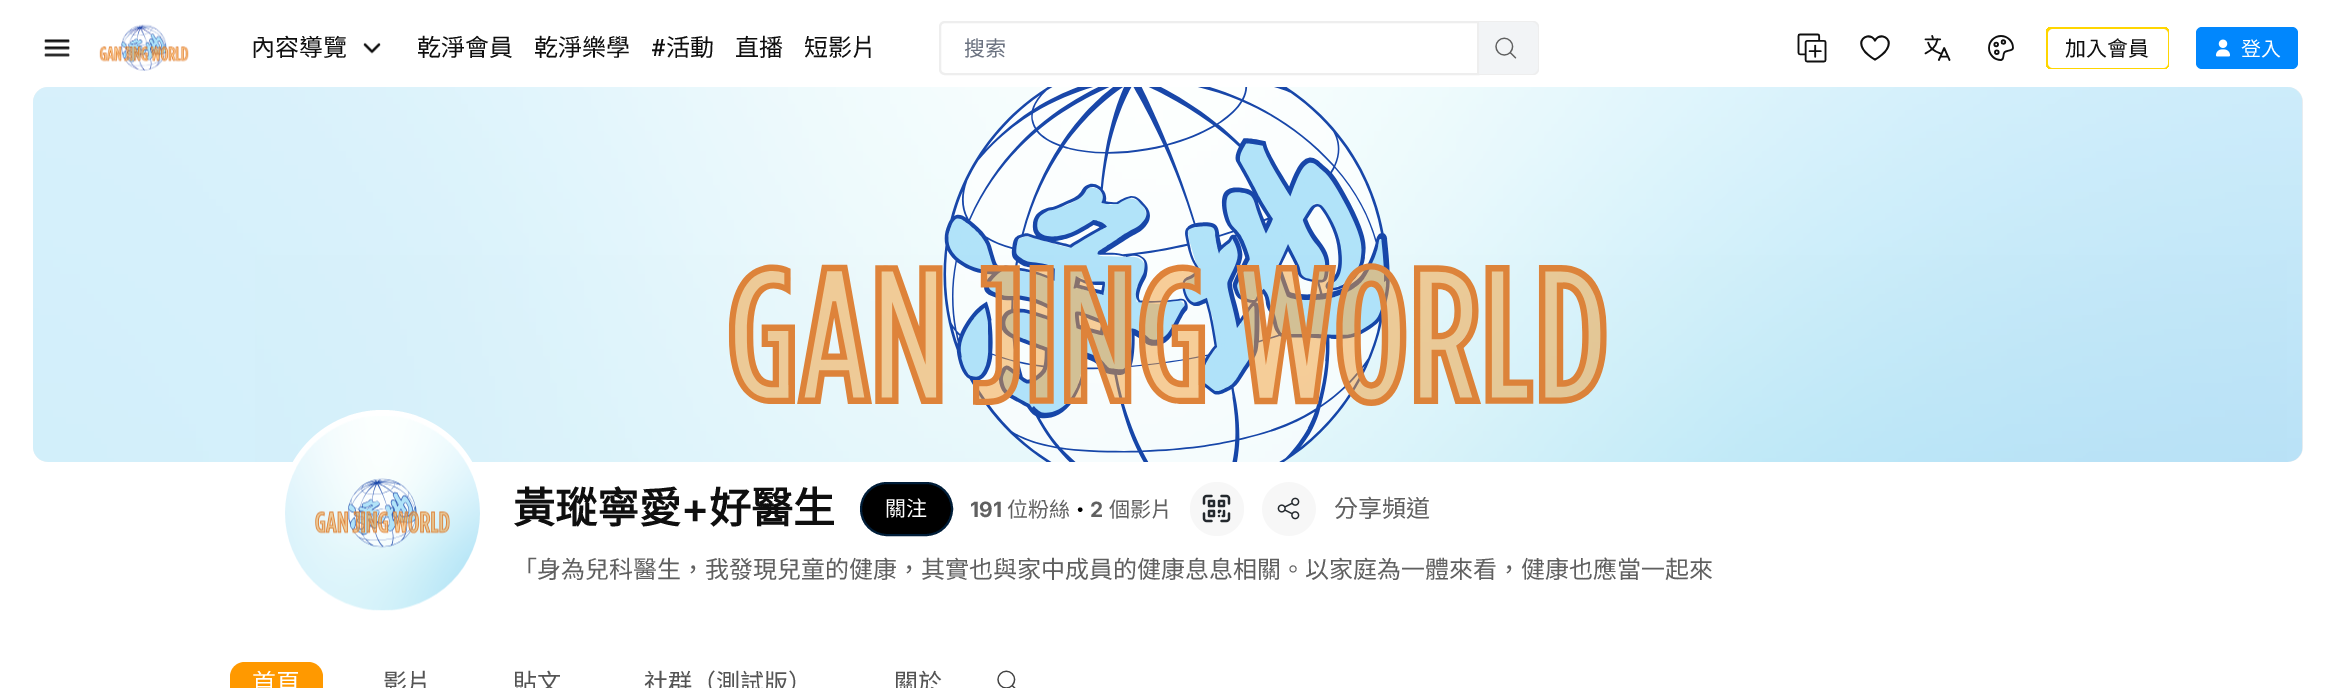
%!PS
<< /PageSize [2333 688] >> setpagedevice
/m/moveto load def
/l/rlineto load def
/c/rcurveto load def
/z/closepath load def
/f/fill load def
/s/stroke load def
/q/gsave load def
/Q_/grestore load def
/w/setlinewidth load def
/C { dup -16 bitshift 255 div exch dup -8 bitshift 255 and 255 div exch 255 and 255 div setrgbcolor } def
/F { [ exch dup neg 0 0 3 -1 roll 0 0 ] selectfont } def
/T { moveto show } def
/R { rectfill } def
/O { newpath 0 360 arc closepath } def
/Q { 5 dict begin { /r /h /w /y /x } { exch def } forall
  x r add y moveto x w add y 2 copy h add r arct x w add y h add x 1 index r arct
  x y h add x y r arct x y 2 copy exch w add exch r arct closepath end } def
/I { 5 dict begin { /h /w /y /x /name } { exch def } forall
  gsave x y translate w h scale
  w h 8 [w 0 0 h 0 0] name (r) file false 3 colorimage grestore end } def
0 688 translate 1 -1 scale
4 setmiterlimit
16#FFFFFF C
0 0 2333 688 R
(1.rgb) 44 39 26 18 I
(2.rgb) 99 24 90 47 I
/NotoSansCJKTC-Regular 24 F
16#0F0F0F C
(內容導覽) 251 56 T
(3.rgb) 363 42 18 12 I
(乾淨會員) 417 56 T
(乾淨樂學) 534 56 T
/Roboto-Medium 24 F
(#) 651 56 T
/NotoSansCJKTC-Regular 24 F
(活動) 666 56 T
(直播) 735 56 T
(短影片) 804 56 T
16#EEEEEE C
2 w
945 22 m 533 0 l 0 52 l -533 0 l -3 0 -5 -2 -5 -5 c 0 -42 l 0 -3 2 -5 5 -5 c z s
/NotoSansCJKTC-Regular 21 F
16#6B7280 C
(搜索) 964 56 T
16#F2F4F6 C
1479 21 m 54 0 l 3.5 0 6 2.5 6 6 c 0 42 l 0 3.5 -2.5 6 -6 6 c -54 0 l z f
16#EEEEEE C
1479 21 m 54 0 l 3 0 6 3 6 6 c 0 42 l 0 3 -3 6 -6 6 c -54 0 l z 1479 22 m 54 0 l 2 0 5 3 5 5 c 0 42 l 0 2 -3 5 -5 5 c -54 0 l z eofill
(4.rgb) 1495 37 22 22 I
(5.rgb) 1797 33 30 30 I
(6.rgb) 1860 35 30 26 I
(7.rgb) 1924 35 27 26 I
(8.rgb) 1988 35 26 26 I
q 2046 27 123 42 6 Q clip newpath
<< /ShadingType 2 /ColorSpace /DeviceRGB /Coords [2067 89 2148 6.6] /Extend [true true] /Function << /FunctionType 3 /Domain [0 1] /Functions [<< /FunctionType 2 /Domain [0 1] /C0 [1 .6 0] /C1 [1 .6 0] /N 1 >> << /FunctionType 2 /Domain [0 1] /C0 [1 .839 0] /C1 [1 .839 .004] /N 1 >>] /Bounds [.01] /Encode [0 1 0 1] >> >> shfill Q_
16#FFFFFF C
2048 29 120 39 5 Q f
16#0F0F0F C
(加入會員) 2065 56 T
16#0187FD C
2196 27 102 42 6 Q f
(9.rgb) 2215 39 15 18 I
/NotoSansCJKTC-Regular 20 F
16#FFFFFF C
(登入) 2241 56 T
16#EBECED C
33 87 2270 375 15 Q f
(10.rgb) 33 87 2270 375 I
16#FFFFFF C
382.5 513.5 103.5 O f
(11.rgb) 285 416 195 195 I
/NotoSansCJKTC-Bold 42 F
16#0F0F0F C
(黃瑽寧愛) 513 523 T
/Inter-SemiBold 42 F
(+) 681 523 T
/NotoSansCJKTC-Bold 42 F
(好醫生) 709 523 T
16#000000 C
861 483 91 52 26 Q q f Q_
16#001D38 C
s
/NotoSansCJKTC-Regular 21 F
16#FFFFFF C
(關注) 885 516 T
/Inter-Bold 21 F
16#606060 C
(191) 970 517 T
/NotoSansCJKTC-Regular 21 F
(位粉絲) 1007 517 T
/Inter-Regular 15 F
16#000000 C
(•) 1076 514 T
/Inter-Bold 21 F
16#606060 C
(2) 1090 517 T
/NotoSansCJKTC-Regular 21 F
(個影片) 1109 517 T
16#F7F7F7 C
1217 509 27 O f
(12.rgb) 1202 494 29 29 I
(13.rgb) 1262 482 54 54 I
/NotoSansCJKTC-Regular 24 F
16#606060 C
(分享頻道) 1334 517 T
(「身為兒科醫生，我發現兒童的健康，其實也與家中成員的健康息息相關。以家庭為一體來看，健康也應當一起來) 513 578 T
16#FF9900 C
245 662 m 63 0 l 8.5 0 15 6.5 15 15 c 0 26 l -93 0 l 0 -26 l 0 -8.5 6.5 -15 15 -15 c z f
16#FFFFFF C
(首頁) 252 691 T
16#545454 C
(影片) 383 691 T
(貼文) 513 691 T
(社群（測試版）) 644 691 T
(關於) 894 691 T
(14.rgb) 997 670 19 18 I
showpage
